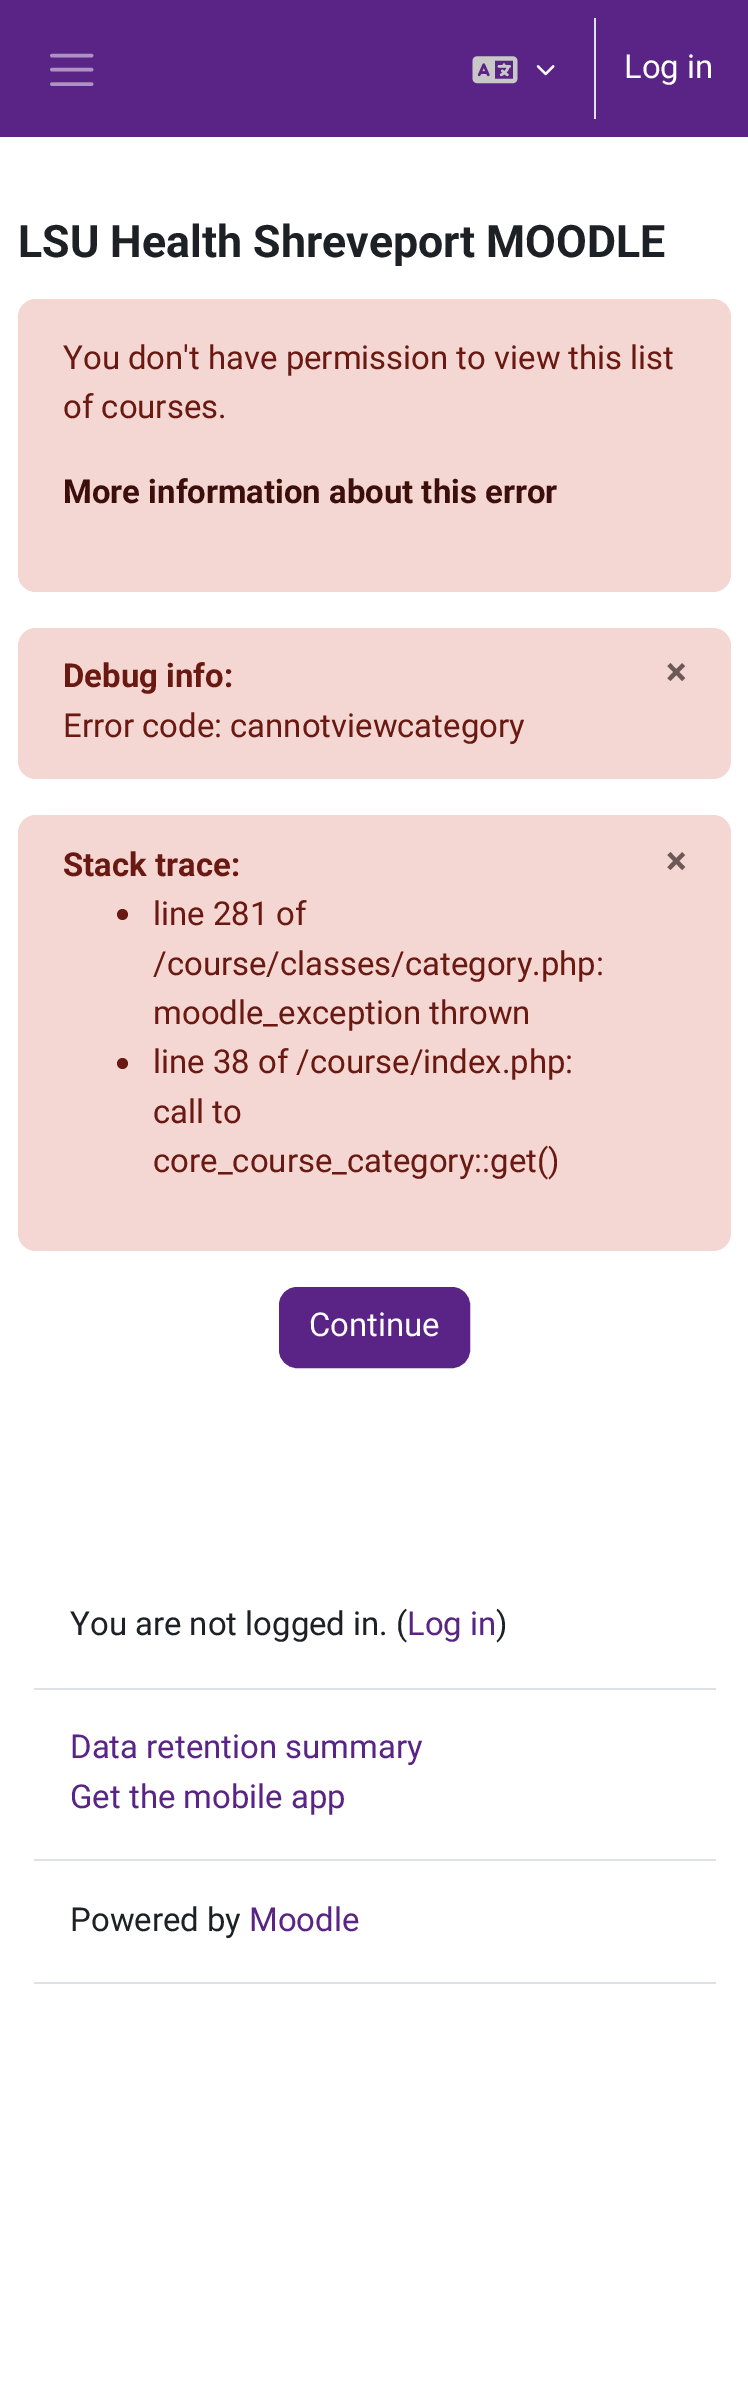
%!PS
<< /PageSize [748 2400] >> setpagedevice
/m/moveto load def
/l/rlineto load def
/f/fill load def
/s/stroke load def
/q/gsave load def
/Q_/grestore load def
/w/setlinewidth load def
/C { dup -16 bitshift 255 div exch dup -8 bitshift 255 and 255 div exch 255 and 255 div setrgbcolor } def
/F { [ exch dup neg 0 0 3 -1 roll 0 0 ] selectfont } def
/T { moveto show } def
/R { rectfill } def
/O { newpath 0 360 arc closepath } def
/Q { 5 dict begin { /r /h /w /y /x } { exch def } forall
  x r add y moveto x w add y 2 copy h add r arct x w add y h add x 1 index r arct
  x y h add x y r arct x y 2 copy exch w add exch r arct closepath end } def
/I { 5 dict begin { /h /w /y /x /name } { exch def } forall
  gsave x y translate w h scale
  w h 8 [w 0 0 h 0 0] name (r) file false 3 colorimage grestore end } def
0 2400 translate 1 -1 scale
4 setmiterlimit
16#FFFFFF C
0 0 748 2400 R
16#5A2486 C
0 0 748 137 R
16#AD92C3 C
3.6 w
1 setlinecap
52 55.5 m 39.5 0 l 52 69.5 m 39.5 0 l 52 84 m 39.5 0 l s
(1.rgb) 472 56 46 28 I
(2.rgb) 536 65 19 11 I
16#DEE2E6 C
594 18 2 101 R
/Roboto-Regular 32.9 F
16#FFFFFF C
(Log in) 624 78 T
/Roboto-Bold 44.7 F
16#1D2125 C
(LSU Health Shreveport MOODLE) 18 257 T
16#F4D6D2 C
18 299 713 293 18 Q f
/Roboto-Regular 32.9 F
16#691911 C
(You don't have permission to view this list) 63 369 T
(of courses.) 63 418 T
/Roboto-Bold 32.9 F
16#3D0F0A C
(More information about this error) 63 503 T
16#F4D6D2 C
18 628 713 151 18 Q f
16#691911 C
(Debug info:) 63 687 T
/Roboto-Bold 39 F
16#6C5856 C
(×) 666 685 T
/Roboto-Regular 32.9 F
16#691911 C
(Error code: cannotviewcategory) 63 737 T
16#F4D6D2 C
18 815 713 436 18 Q f
/Roboto-Bold 32.9 F
16#691911 C
(Stack trace:) 63 876 T
/Roboto-Bold 39 F
16#6C5856 C
(×) 666 874 T
16#691911 C
122.5 914.5 5.5 O f
/Roboto-Regular 32.9 F
(line 281 of) 153 925 T
(/course/classes/category.php:) 153 975 T
(moodle_exception thrown) 153 1024 T
122.5 1063.5 5.5 O f
(line 38 of /course/index.php:) 153 1073 T
(call to) 153 1123 T
(core_course_category::get\(\)) 153 1172 T
16#5A2486 C
280 1288 189 79 17 Q q f Q_
2 w
0 setlinecap
s
16#FFFFFF C
(Continue) 309 1336 T
16#DEE2E6 C
34 1688 682 2 R
16#1D2125 C
(You are not logged in. \() 70 1635 T
16#5A2486 C
(Log in) 407 1635 T
16#1D2125 C
(\)) 496 1635 T
16#DEE2E6 C
34 1859 682 2 R
16#5A2486 C
(Data retention summary) 70 1758 T
(Get the mobile app) 70 1808 T
16#DEE2E6 C
34 1982 682 2 R
16#1D2125 C
(Powered by) 70 1931 T
16#5A2486 C
(Moodle) 249 1931 T
showpage
